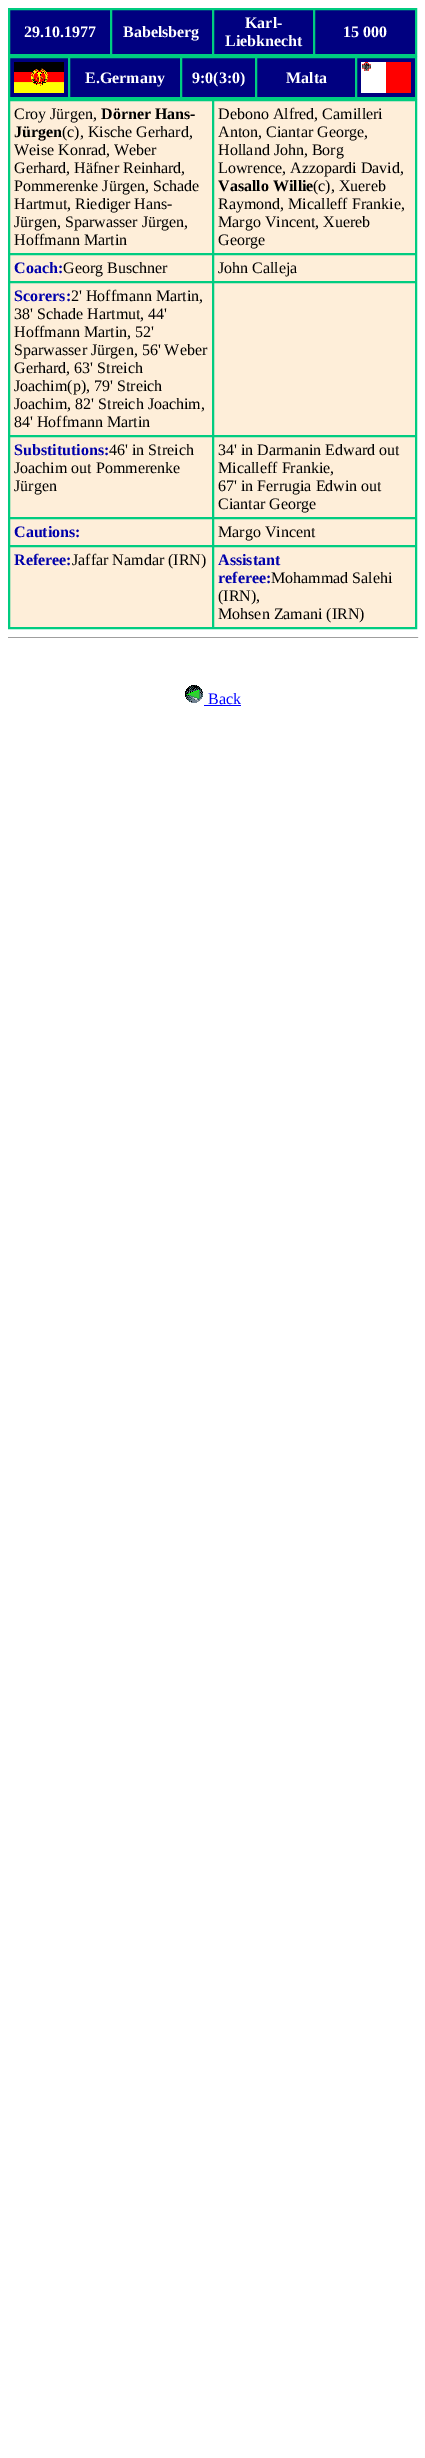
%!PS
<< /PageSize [425 2458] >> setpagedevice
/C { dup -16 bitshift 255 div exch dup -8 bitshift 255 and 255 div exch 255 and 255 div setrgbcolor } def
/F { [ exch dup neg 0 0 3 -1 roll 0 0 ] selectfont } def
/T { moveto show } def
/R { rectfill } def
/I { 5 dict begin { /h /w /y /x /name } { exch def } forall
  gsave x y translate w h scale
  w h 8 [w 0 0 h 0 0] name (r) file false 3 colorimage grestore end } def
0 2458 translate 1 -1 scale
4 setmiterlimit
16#FFFFFF C
0 0 425 2458 R
16#000080 C
10 10 405 44 R
16#00CC80 C
8.5 8.5 408 47 rectstroke
9.5 9.5 101 45 rectstroke
/LiberationSerif-Bold 16 F
16#FFFFFF C
(29.10.1977) 24 37 T
16#00CC80 C
111.5 9.5 101 45 rectstroke
16#FFFFFF C
(Babelsberg) 123 37 T
16#00CC80 C
213.5 9.5 100 45 rectstroke
16#FFFFFF C
(Karl-) 245 28 T
(Liebknecht) 225 46 T
16#00CC80 C
314.5 9.5 101 45 rectstroke
16#FFFFFF C
(15 000) 343 37 T
16#000080 C
10 58 405 39 R
16#00CC80 C
8.5 56.5 408 42 rectstroke
9.5 57.5 59 40 rectstroke
(1.rgb) 14 62 50 31 I
69.5 57.5 111 40 rectstroke
16#FFFFFF C
(E.Germany) 85 83 T
16#00CC80 C
181.5 57.5 74 40 rectstroke
16#FFFFFF C
(9:0\(3:0\)) 192 83 T
16#00CC80 C
256.5 57.5 99 40 rectstroke
16#FFFFFF C
(Malta) 286 83 T
16#00CC80 C
356.5 57.5 59 40 rectstroke
(2.rgb) 361 62 50 31 I
16#FEEED9 C
10 101 405 526 R
16#00CC80 C
8.5 99.5 408 529 rectstroke
9.5 100.5 203 153 rectstroke
/LiberationSerif-Regular 16 F
16#000000 C
(Croy Jürgen,) 14 119 T
/LiberationSerif-Bold 16 F
(Dörner Hans-) 101 119 T
(Jürgen) 14 137 T
/LiberationSerif-Regular 16 F
(\(c\), Kische Gerhard,) 62 137 T
(Weise Konrad, Weber) 14 155 T
(Gerhard, Häfner Reinhard,) 14 173 T
(Pommerenke Jürgen, Schade) 14 191 T
(Hartmut, Riediger Hans-) 14 209 T
(Jürgen, Sparwasser Jürgen,) 14 227 T
(Hoffmann Martin) 14 245 T
16#00CC80 C
213.5 100.5 202 153 rectstroke
16#000000 C
(Debono Alfred, Camilleri) 218 119 T
(Anton, Ciantar George,) 218 137 T
(Holland John, Borg) 218 155 T
(Lowrence, Azzopardi David,) 218 173 T
/LiberationSerif-Bold 16 F
(Vasallo Willie) 218 191 T
/LiberationSerif-Regular 16 F
(\(c\), Xuereb) 313 191 T
(Raymond, Micalleff Frankie,) 218 209 T
(Margo Vincent, Xuereb) 218 227 T
(George) 218 245 T
16#00CC80 C
9.5 254.5 203 27 rectstroke
/LiberationSerif-Bold 16 F
16#0000AA C
(Coach:) 14 273 T
/LiberationSerif-Regular 16 F
16#000000 C
(Georg Buschner) 63 273 T
16#00CC80 C
213.5 254.5 202 27 rectstroke
16#000000 C
(John Calleja) 218 273 T
16#00CC80 C
9.5 282.5 203 153 rectstroke
/LiberationSerif-Bold 16 F
16#0000AA C
(Scorers:) 14 301 T
/LiberationSerif-Regular 16 F
16#000000 C
(2' Hoffmann Martin,) 71 301 T
(38' Schade Hartmut, 44') 14 319 T
(Hoffmann Martin, 52') 14 337 T
(Sparwasser Jürgen, 56' Weber) 14 355 T
(Gerhard, 63' Streich) 14 373 T
(Joachim\(p\), 79' Streich) 14 391 T
(Joachim, 82' Streich Joachim,) 14 409 T
(84' Hoffmann Martin) 14 427 T
16#00CC80 C
213.5 282.5 202 153 rectstroke
9.5 436.5 203 81 rectstroke
/LiberationSerif-Bold 16 F
16#0000AA C
(Substitutions:) 14 455 T
/LiberationSerif-Regular 16 F
16#000000 C
(46' in Streich) 109 455 T
(Joachim out Pommerenke) 14 473 T
(Jürgen) 14 491 T
16#00CC80 C
213.5 436.5 202 81 rectstroke
16#000000 C
(34' in Darmanin Edward out) 218 455 T
(Micalleff Frankie,) 218 473 T
(67' in Ferrugia Edwin out) 218 491 T
(Ciantar George) 218 509 T
16#00CC80 C
9.5 518.5 203 27 rectstroke
/LiberationSerif-Bold 16 F
16#0000AA C
(Cautions:) 14 537 T
16#00CC80 C
213.5 518.5 202 27 rectstroke
/LiberationSerif-Regular 16 F
16#000000 C
(Margo Vincent) 218 537 T
16#00CC80 C
9.5 546.5 203 81 rectstroke
/LiberationSerif-Bold 16 F
16#0000AA C
(Referee:) 14 565 T
/LiberationSerif-Regular 16 F
16#000000 C
(Jaffar Namdar \(IRN\)) 72 565 T
16#00CC80 C
213.5 546.5 202 81 rectstroke
/LiberationSerif-Bold 16 F
16#0000AA C
(Assistant) 218 565 T
(referee:) 218 583 T
/LiberationSerif-Regular 16 F
16#000000 C
(Mohammad Salehi) 271 583 T
(\(IRN\),) 218 601 T
(Mohsen Zamani \(IRN\)) 218 619 T
16#9F9F9F C
8 637 411 1 R
16#EEEEEE C
418 637 1 1 R
(3.rgb) 185 685 18 18 I
16#0000FF C
(Back) 208 704 T
204 705 37 1 R
showpage
